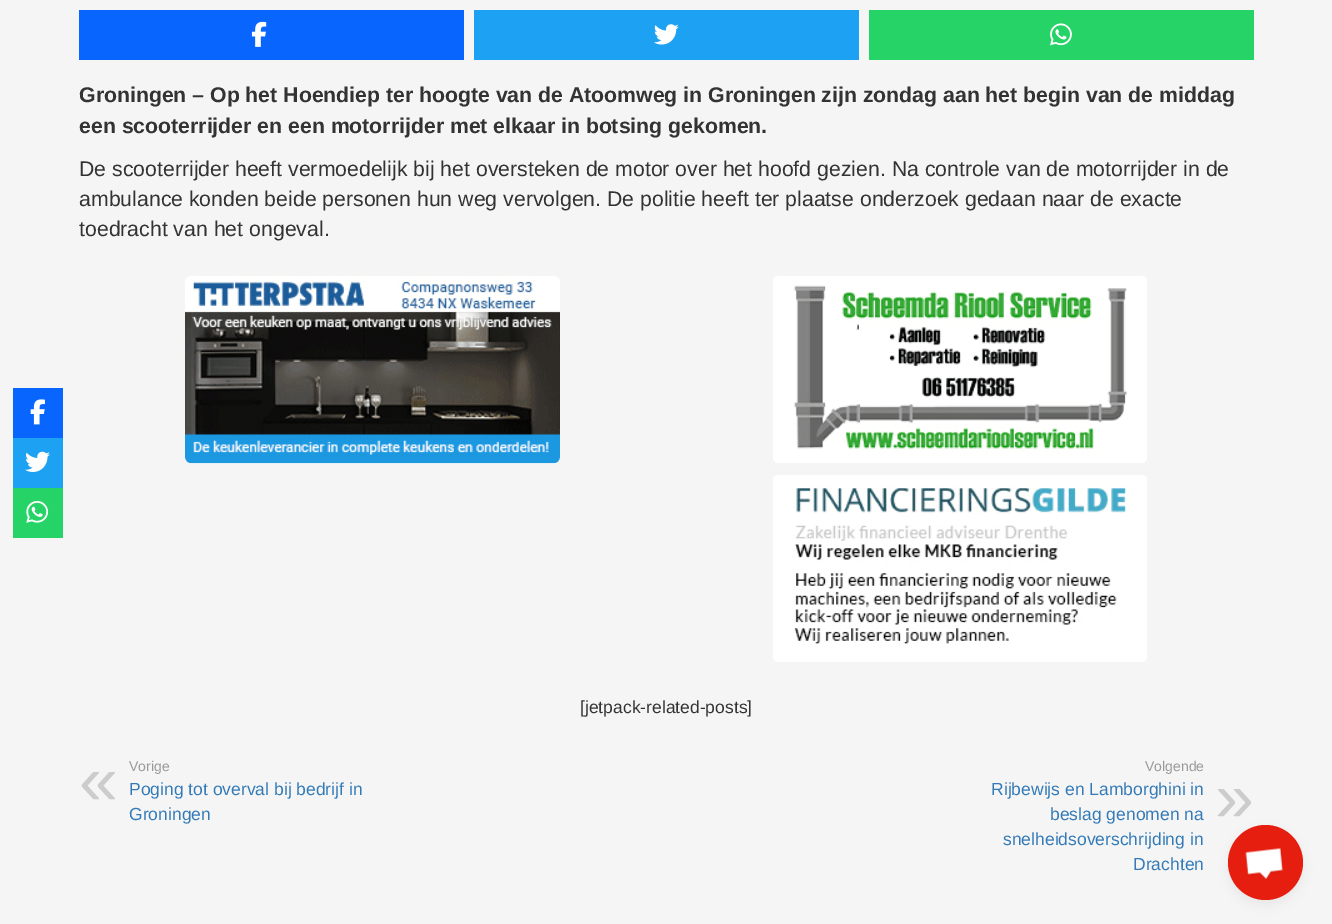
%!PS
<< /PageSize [1332 924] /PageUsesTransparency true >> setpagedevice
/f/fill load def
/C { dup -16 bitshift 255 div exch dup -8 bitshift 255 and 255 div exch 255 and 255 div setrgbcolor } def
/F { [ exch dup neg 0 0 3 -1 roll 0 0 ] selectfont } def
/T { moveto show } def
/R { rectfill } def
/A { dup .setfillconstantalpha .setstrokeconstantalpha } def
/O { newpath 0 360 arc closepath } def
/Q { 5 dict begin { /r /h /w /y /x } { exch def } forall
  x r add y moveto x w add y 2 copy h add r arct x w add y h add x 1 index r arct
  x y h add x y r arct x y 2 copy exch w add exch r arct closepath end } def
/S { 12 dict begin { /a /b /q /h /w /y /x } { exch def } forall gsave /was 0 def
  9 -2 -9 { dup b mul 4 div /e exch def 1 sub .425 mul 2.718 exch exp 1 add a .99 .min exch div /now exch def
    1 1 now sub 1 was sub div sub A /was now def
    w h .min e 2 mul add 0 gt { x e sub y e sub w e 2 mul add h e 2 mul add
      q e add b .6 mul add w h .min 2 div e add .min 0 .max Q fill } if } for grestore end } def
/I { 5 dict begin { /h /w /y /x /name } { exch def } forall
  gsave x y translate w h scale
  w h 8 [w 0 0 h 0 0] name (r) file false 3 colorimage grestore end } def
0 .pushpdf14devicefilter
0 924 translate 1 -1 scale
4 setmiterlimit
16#F5F5F5 C
0 0 1332 924 R
16#0866FF C
13 388 50 50 R
(1.rgb) 30 399 15 26 I
16#1DA1F2 C
13 438 50 50 R
(2.rgb) 25 451 25 21 I
16#25D366 C
13 488 50 50 R
(3.rgb) 26 500 23 23 I
16#0866FF C
79 10 385 50 R
(4.rgb) 251 21 16 26 I
16#1DA1F2 C
474 10 385 50 R
(5.rgb) 654 24 25 21 I
16#25D366 C
869 10 385 50 R
(6.rgb) 1050 23 22 23 I
/LiberationSans-Bold 21.25 F
16#333333 C
(Groningen – Op het Hoendiep ter hoogte van de Atoomweg in Groningen zijn zondag aan het begin van de middag) 79 102 T
(een scooterrijder en een motorrijder met elkaar in botsing gekomen.) 79 133 T
/LiberationSans-Regular 21.25 F
(De scooterrijder heeft vermoedelijk bij het oversteken de motor over het hoofd gezien. Na controle van de motorrijder in de) 79 176 T
(ambulance konden beide personen hun weg vervolgen. De politie heeft ter plaatse onderzoek gedaan naar de exacte) 79 206 T
(toedracht van het ongeval.) 79 236 T
(7.rgb) 185 276 375 188 I
(8.rgb) 773 276 374 187 I
(9.rgb) 773 475 374 187 I
/LiberationSans-Regular 17.5 F
([jetpack-related-posts]) 580 713 T
/LiberationSans-Regular 14 F
16#999999 C
(Vorige) 129 771 T
/LiberationSans-Regular 70 F
16#CCCCCC C
(«) 79 804 T
/LiberationSans-Regular 17.5 F
16#337AB7 C
(Poging tot overval bij bedrijf in) 129 795 T
(Groningen) 129 820 T
/LiberationSans-Regular 14 F
16#999999 C
(Volgende) 1145 771 T
/LiberationSans-Regular 17.5 F
16#337AB7 C
(Rijbewijs en Lamborghini in) 991 795 T
/LiberationSans-Regular 70 F
16#CCCCCC C
(») 1215 821 T
/LiberationSans-Regular 17.5 F
16#337AB7 C
(beslag genomen na) 1050 820 T
(snelheidsoverschrijding in) 1003 845 T
(Drachten) 1133 870 T
16#000000 C
1228 830 75 75 37.5 6 .05 S
16#E51E0F C
1265.5 862.5 37.5 O f
(10.rgb) 1245 848 38 31 I
.poppdf14devicefilter showpage
